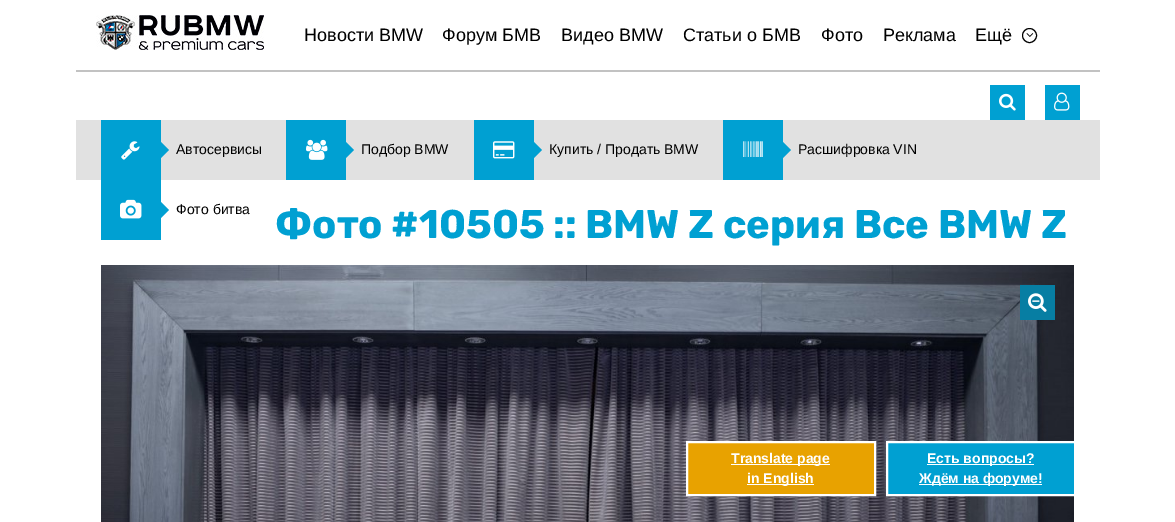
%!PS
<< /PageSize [1175 522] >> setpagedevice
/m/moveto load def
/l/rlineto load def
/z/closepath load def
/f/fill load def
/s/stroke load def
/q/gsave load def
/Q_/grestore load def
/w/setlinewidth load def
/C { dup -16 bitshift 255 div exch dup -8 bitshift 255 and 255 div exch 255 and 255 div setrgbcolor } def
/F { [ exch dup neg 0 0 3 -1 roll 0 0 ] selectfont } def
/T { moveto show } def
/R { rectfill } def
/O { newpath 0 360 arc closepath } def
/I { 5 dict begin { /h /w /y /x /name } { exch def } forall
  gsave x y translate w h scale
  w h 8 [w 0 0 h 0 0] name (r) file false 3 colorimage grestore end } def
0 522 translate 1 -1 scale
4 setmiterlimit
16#FFFFFF C
0 0 1175 522 R
16#C2C2C2 C
76 70 1024 2 R
(1.rgb) 96 15 168 35 I
/LiberationSans-Regular 18 F
16#000000 C
(Новости BMW) 304 41 T
(Форум БМВ) 442 41 T
(Видео BMW) 561 41 T
(Статьи о БМВ) 683 41 T
(Фото) 821 41 T
(Реклама) 883 41 T
(Ещё) 975 41 T
1029.5 35.5 7 O s
(2.rgb) 1026 33 8 4 I
16#00A0D2 C
990 85 35 35 R
(3.rgb) 999 93 17 18 I
1045 85 35 35 R
(4.rgb) 1054 92 16 19 I
16#E1E1E1 C
76 120 1024 60 R
16#00A0D2 C
101 120 60 120 R
(5.rgb) 121 141 19 19 I
159 160 m 0 -20 l 10 10 l z f
/LiberationSans-Regular 14 F
16#000000 C
(Автосервисы) 176 154 T
16#00A0D2 C
286 120 60 60 R
(6.rgb) 306 139 22 21 I
344 160 m 0 -20 l 10 10 l z f
16#000000 C
(Подбор BMW) 361 154 T
16#00A0D2 C
474 120 60 60 R
(7.rgb) 493 141 22 18 I
532 160 m 0 -20 l 10 10 l z f
16#000000 C
(Купить / Продать BMW) 549 154 T
16#00A0D2 C
723 120 60 60 R
(8.rgb) 743 141 20 16 I
781 160 m 0 -20 l 10 10 l z f
16#000000 C
(Расшифровка VIN) 798 154 T
(9.rgb) 120 199 22 20 I
16#00A0D2 C
159 220 m 0 -20 l 10 10 l z f
16#000000 C
(Фото битва) 176 214 T
/Rubik-Bold 40 F
16#00A0D2 C
(Фото #10505 :: BMW Z серия Все BMW Z) 275 238 T
(10.rgb) 101 265 973 257 I
16#077EA3 C
1020 285 35 35 R
(11.rgb) 1028 293 19 19 I
16#E8A200 C
687 442 m 188 0 l 0 53 l -188 0 l z q f Q_
16#FFFFFF C
2 w
s
731 464 99 1 R
/LiberationSans-Bold 14 F
(Translate page) 731 463 T
747 484 67 1 R
(in English) 747 483 T
16#00A0D2 C
887 442 m 188 0 l 0 53 l -188 0 l z q f Q_
16#FFFFFF C
s
927 464 107 1 R
(Есть вопросы?) 927 463 T
919 484 123 1 R
(Ждём на форуме!) 919 483 T
showpage
